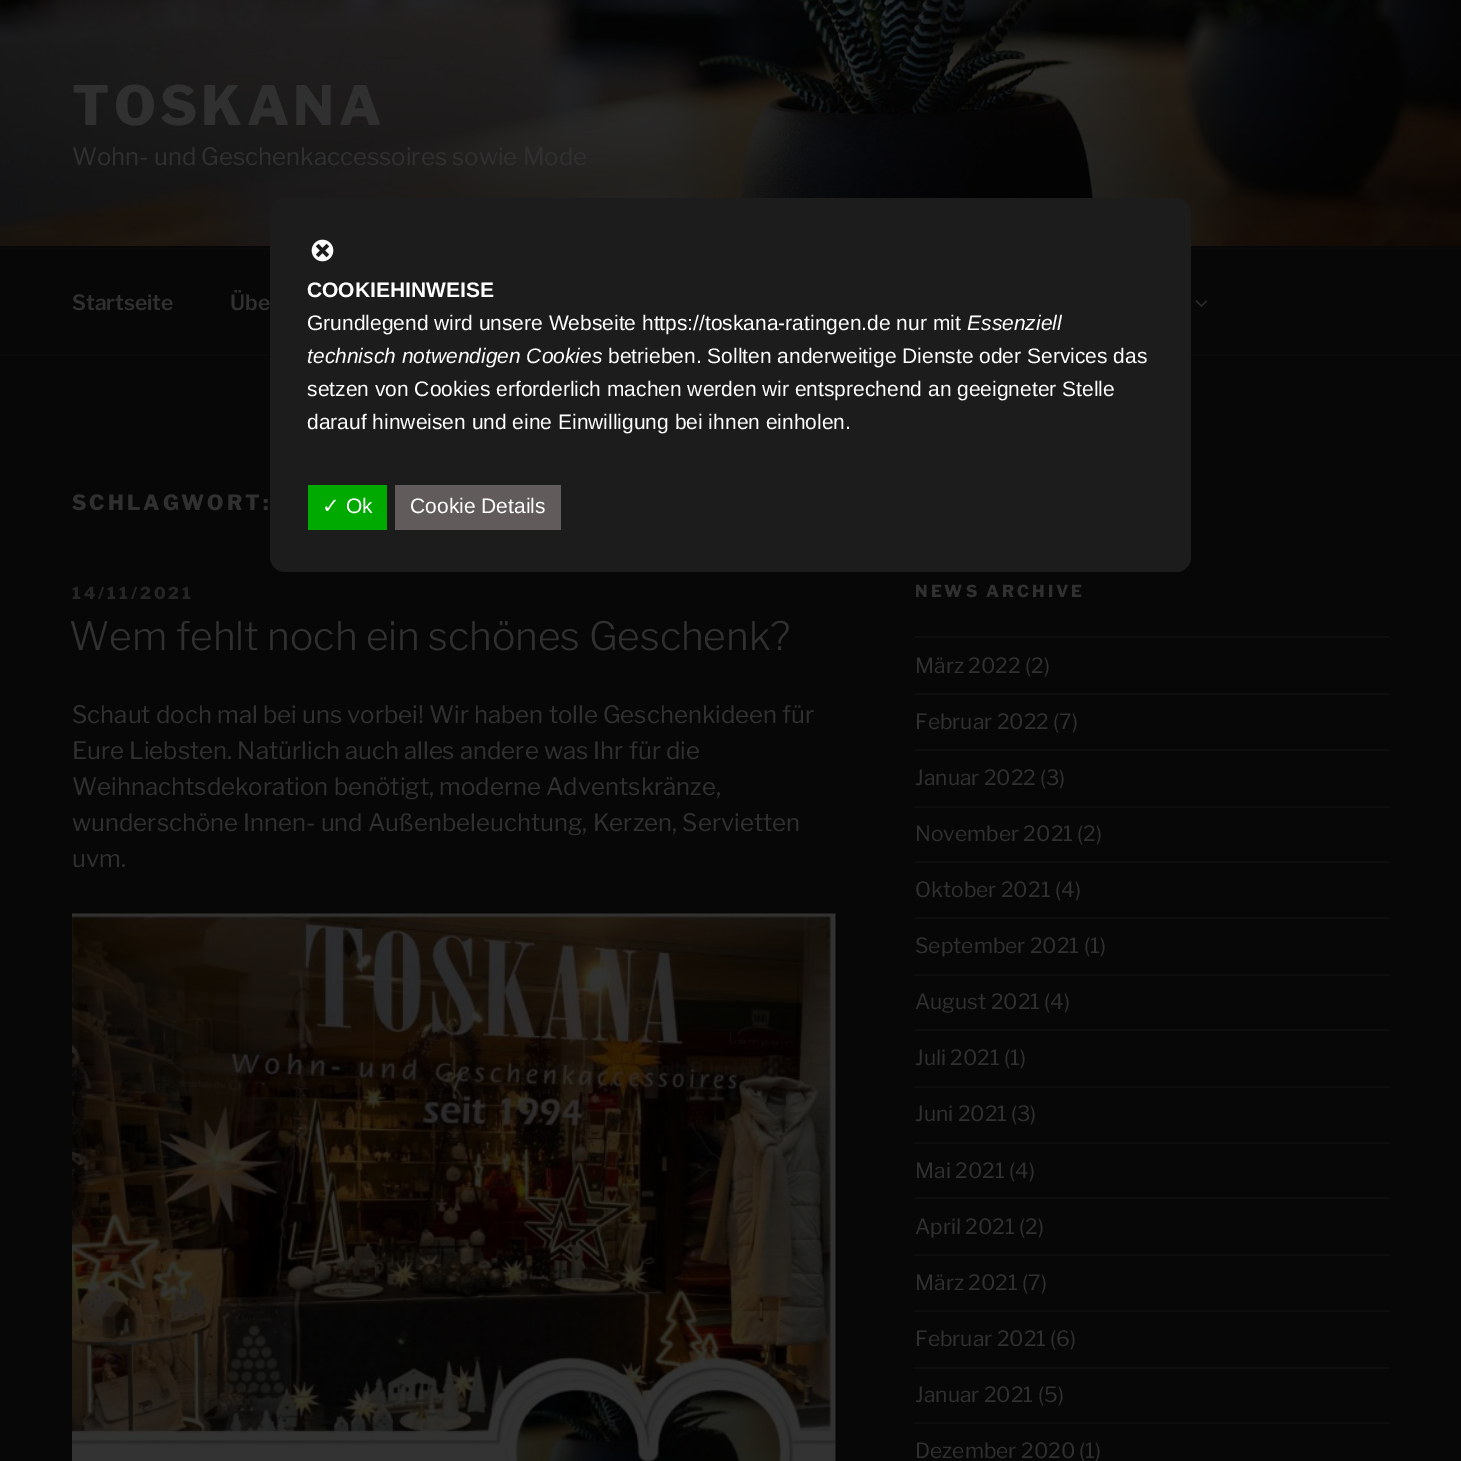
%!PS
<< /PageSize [1461 1461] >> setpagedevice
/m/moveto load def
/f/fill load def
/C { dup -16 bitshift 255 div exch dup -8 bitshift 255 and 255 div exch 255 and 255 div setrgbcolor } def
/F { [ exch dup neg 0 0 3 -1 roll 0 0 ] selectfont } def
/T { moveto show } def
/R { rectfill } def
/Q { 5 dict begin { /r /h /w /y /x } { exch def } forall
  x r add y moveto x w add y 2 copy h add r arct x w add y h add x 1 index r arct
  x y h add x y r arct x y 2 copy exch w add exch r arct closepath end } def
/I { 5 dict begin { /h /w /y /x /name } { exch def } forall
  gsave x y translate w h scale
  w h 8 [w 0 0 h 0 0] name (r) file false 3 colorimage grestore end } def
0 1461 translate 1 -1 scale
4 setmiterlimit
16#070707 C
0 0 1461 1461 R
(1.rgb) 0 0 1461 246 I
/LibreFranklin-ExtraBold 54 F
16#303030 C
72 125 m 4.25 0 (TOSKANA) ashow
/LibreFranklin-Regular 24 F
(Wohn- und Geschenkaccessoires sowie Mode) 72 165 T
16#0A0A0A C
0 248 1461 2 R
0 354 1461 2 R
/LibreFranklin-SemiBold 21 F
16#303030 C
(Startseite) 72 310 T
(Übe) 230 310 T
(2.rgb) 1195 300 13 7 I
/LibreFranklin-ExtraBold 21 F
72 510 m 3 0 (SCHLAGWORT:) ashow
/LibreFranklin-ExtraBold 16.5 F
16#252525 C
72 599 m 3 0 (14/11/2021) ashow
/LibreFranklin-Light 39 F
16#303030 C
(Wem fehlt noch ein schönes Geschenk?) 69 650 T
/LibreFranklin-Regular 24 F
(Schaut doch mal bei uns vorbei! Wir haben tolle Geschenkideen für) 72 723 T
(Eure Liebsten. Natürlich auch alles andere was Ihr für die) 72 759 T
(Weihnachtsdekoration benötigt, moderne Adventskränze,) 72 795 T
(wunderschöne Innen- und Außenbeleuchtung, Kerzen, Servietten) 72 831 T
(uvm.) 72 867 T
(3.rgb) 72 913 764 548 I
/LibreFranklin-ExtraBold 16.5 F
915 597 m 3 0 (NEWS ARCHIVE) ashow
16#0E0E0E C
915 636 474 2 R
915 693 474 2 R
/LibreFranklin-Regular 21 F
16#303030 C
(März 2022) 915 673 T
(\(2\)) 1025 673 T
16#0E0E0E C
915 749 474 2 R
16#303030 C
(Februar 2022) 915 729 T
(\(7\)) 1053 729 T
16#0E0E0E C
915 806 474 2 R
16#303030 C
(Januar 2022) 915 785 T
(\(3\)) 1040 785 T
16#0E0E0E C
915 861 474 2 R
16#303030 C
(November 2021) 915 841 T
(\(2\)) 1077 841 T
16#0E0E0E C
915 917 474 2 R
16#303030 C
(Oktober 2021) 915 897 T
(\(4\)) 1055 897 T
16#0E0E0E C
915 974 474 2 R
16#303030 C
(September 2021) 915 953 T
(\(1\)) 1084 953 T
16#0E0E0E C
915 1029 474 2 R
16#303030 C
(August 2021) 915 1009 T
(\(4\)) 1044 1009 T
16#0E0E0E C
915 1086 474 2 R
16#303030 C
(Juli 2021) 915 1065 T
(\(1\)) 1004 1065 T
16#0E0E0E C
915 1142 474 2 R
16#303030 C
(Juni 2021) 915 1121 T
(\(3\)) 1011 1121 T
16#0E0E0E C
915 1197 474 2 R
16#303030 C
(Mai 2021) 915 1178 T
(\(4\)) 1009 1178 T
16#0E0E0E C
915 1254 474 2 R
16#303030 C
(April 2021) 915 1234 T
(\(2\)) 1019 1234 T
16#0E0E0E C
915 1310 474 2 R
16#303030 C
(März 2021) 915 1290 T
(\(7\)) 1022 1290 T
16#0E0E0E C
915 1367 474 2 R
16#303030 C
(Februar 2021) 915 1346 T
(\(6\)) 1050 1346 T
16#0E0E0E C
915 1422 474 2 R
16#303030 C
(Januar 2021) 915 1402 T
(\(5\)) 1038 1402 T
(Dezember 2020) 915 1458 T
(\(1\)) 1079 1458 T
16#1D1C1C C
270 198 921 374 15 Q f
(4.rgb) 311 239 23 23 I
/LiberationSans-Bold 21 F
16#FFFFFF C
(COOKIEHINWEISE) 307 297 T
/LiberationSans-Regular 21 F
(Grundlegend wird unsere Webseite https://toskana-ratingen.de nur mit) 307 330 T
/LiberationSans-Italic 21 F
(Essenziell) 967 330 T
(technisch notwendigen Cookies) 307 363 T
/LiberationSans-Regular 21 F
(betrieben. Sollten anderweitige Dienste oder Services das) 608 363 T
(setzen von Cookies erforderlich machen werden wir entsprechend an geeigneter Stelle) 307 396 T
(darauf hinweisen und eine Einwilligung bei ihnen einholen.) 307 429 T
16#00AA00 C
308 485 79 45 R
/DejaVuSans-Regular 21 F
16#FFFFFF C
(✓) 322 513 T
/LiberationSans-Regular 21 F
(Ok) 346 513 T
16#615B5B C
395 485 166 45 R
16#FFFFFF C
(Cookie Details) 410 513 T
showpage
